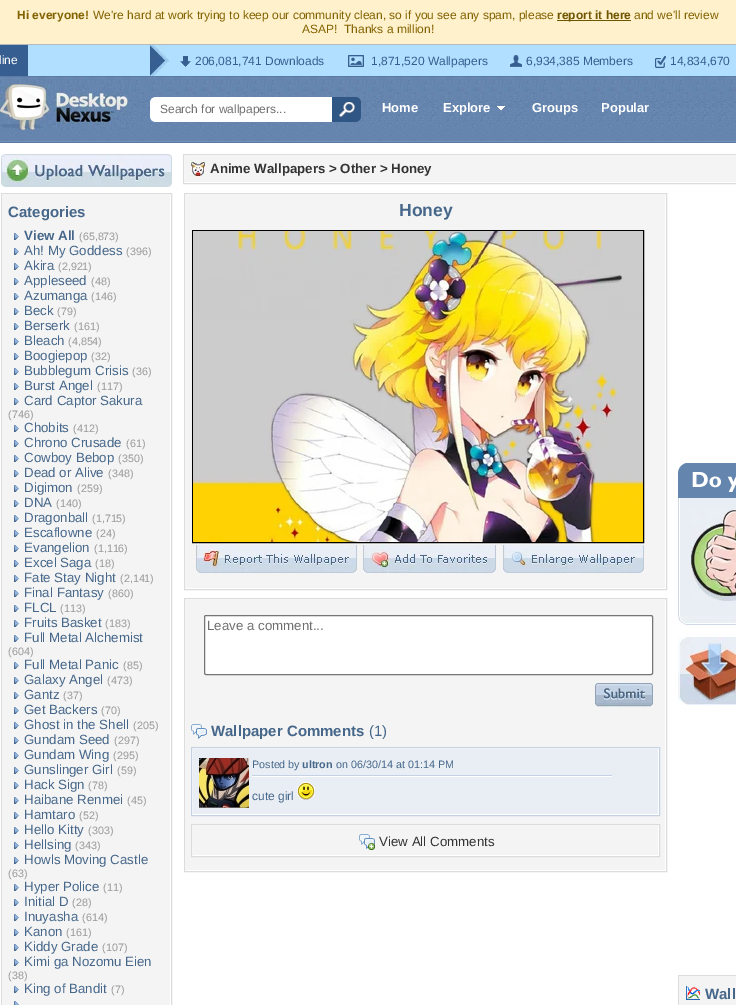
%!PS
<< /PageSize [736 1005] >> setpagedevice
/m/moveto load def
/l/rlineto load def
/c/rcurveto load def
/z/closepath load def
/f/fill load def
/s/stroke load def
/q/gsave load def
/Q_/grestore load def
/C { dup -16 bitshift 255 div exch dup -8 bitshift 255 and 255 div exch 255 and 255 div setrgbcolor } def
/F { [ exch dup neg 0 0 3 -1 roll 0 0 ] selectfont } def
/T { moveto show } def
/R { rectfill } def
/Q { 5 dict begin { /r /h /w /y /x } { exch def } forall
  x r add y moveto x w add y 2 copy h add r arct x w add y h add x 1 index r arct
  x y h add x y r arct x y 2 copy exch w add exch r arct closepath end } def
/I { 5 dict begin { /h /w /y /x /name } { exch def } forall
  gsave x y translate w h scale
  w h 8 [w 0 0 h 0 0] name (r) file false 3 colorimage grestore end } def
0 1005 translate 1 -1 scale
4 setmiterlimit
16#FFFFFF C
0 0 736 1005 R
16#FFF1CB C
0 0 736 44 R
/LiberationSans-Bold 12 F
16#826200 C
(Hi everyone!) 17 19 T
/LiberationSans-Regular 12 F
(We're hard at work trying to keep our community clean, so if you see any spam, please) 93 19 T
16#705500 C
557 20 74 1 R
/LiberationSans-Bold 12 F
(report it here) 557 19 T
/LiberationSans-Regular 12 F
16#826200 C
(and we'll review) 634 19 T
(ASAP!  Thanks a million!) 302 33 T
16#B1DFFF C
28 45 708 31 R
16#B6BAC0 C
0 44 736 1 R
16#375E90 C
0 45 28 31 R
16#FFFFFF C
(line) -1 64 T
(1.rgb) 150 45 19 31 I
(2.rgb) 180 56 11 11 I
16#375E90 C
(206,081,741 Downloads) 195 65 T
(3.rgb) 348 55 16 12 I
(1,871,520 Wallpapers) 371 65 T
(4.rgb) 510 55 12 12 I
(6,934,385 Members) 526 65 T
(5.rgb) 655 56 11 12 I
(14,834,670) 670 65 T
(6.rgb) 0 76 736 67 I
(7.rgb) 0 84 128 46 I
16#FFFFFF C
156 97 m 192 0 l 0 25 l -192 0 l -3.5 0 -6 -2.5 -6 -6 c 0 -13 l 0 -3.5 2.5 -6 6 -6 c z f
16#707070 C
(Search for wallpapers...) 160 113 T
16#305686 C
332 97 m 23 0 l 3.5 0 6 2.5 6 6 c 0 13 l 0 3.5 -2.5 6 -6 6 c -23 0 l z f
(8.rgb) 339 102 16 15 I
/LiberationSans-Bold 13 F
16#FFFFFF C
(Home) 382 112 T
(Explore) 443 112 T
(9.rgb) 496 106 10 5 I
(Groups) 532 112 T
(Popular) 601 112 T
(10.rgb) 1 154 171 33 I
16#DCDCDC C
1.5 193.5 170 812 rectstroke
16#F4F4F4 C
3 195 167 810 R
/LiberationSans-Bold 15 F
16#46678A C
(Categories) 8 217 T
(11.rgb) 14 233 5 7 I
/LiberationSans-Bold 13.3 F
(View All) 24 240 T
/LiberationSans-Regular 10.75 F
16#999999 C
(\(65,873\)) 79 240 T
(11.rgb) 14 248 5 7 I
/LiberationSans-Regular 13.3 F
16#46678A C
(Ah! My Goddess) 24 255 T
/LiberationSans-Regular 10.75 F
16#999999 C
(\(396\)) 126 255 T
(11.rgb) 14 263 5 7 I
/LiberationSans-Regular 13.3 F
16#46678A C
(Akira) 24 270 T
/LiberationSans-Regular 10.75 F
16#999999 C
(\(2,921\)) 58 270 T
(11.rgb) 14 278 5 7 I
/LiberationSans-Regular 13.3 F
16#46678A C
(Appleseed) 24 285 T
/LiberationSans-Regular 10.75 F
16#999999 C
(\(48\)) 91 285 T
(11.rgb) 14 293 5 7 I
/LiberationSans-Regular 13.3 F
16#46678A C
(Azumanga) 24 300 T
/LiberationSans-Regular 10.75 F
16#999999 C
(\(146\)) 91 300 T
(11.rgb) 14 308 5 7 I
/LiberationSans-Regular 13.3 F
16#46678A C
(Beck) 24 315 T
/LiberationSans-Regular 10.75 F
16#999999 C
(\(79\)) 57 315 T
(11.rgb) 14 323 5 7 I
/LiberationSans-Regular 13.3 F
16#46678A C
(Berserk) 24 330 T
/LiberationSans-Regular 10.75 F
16#999999 C
(\(161\)) 74 330 T
(11.rgb) 14 338 5 7 I
/LiberationSans-Regular 13.3 F
16#46678A C
(Bleach) 24 345 T
/LiberationSans-Regular 10.75 F
16#999999 C
(\(4,854\)) 68 345 T
(11.rgb) 14 353 5 7 I
/LiberationSans-Regular 13.3 F
16#46678A C
(Boogiepop) 24 360 T
/LiberationSans-Regular 10.75 F
16#999999 C
(\(32\)) 91 360 T
(11.rgb) 14 368 5 7 I
/LiberationSans-Regular 13.3 F
16#46678A C
(Bubblegum Crisis) 24 375 T
/LiberationSans-Regular 10.75 F
16#999999 C
(\(36\)) 132 375 T
(11.rgb) 14 383 5 7 I
/LiberationSans-Regular 13.3 F
16#46678A C
(Burst Angel) 24 390 T
/LiberationSans-Regular 10.75 F
16#999999 C
(\(117\)) 97 390 T
(11.rgb) 14 398 5 7 I
/LiberationSans-Regular 13.3 F
16#46678A C
(Card Captor Sakura) 24 405 T
/LiberationSans-Regular 10.75 F
16#999999 C
(\(746\)) 8 418 T
(11.rgb) 14 425 5 7 I
/LiberationSans-Regular 13.3 F
16#46678A C
(Chobits) 24 432 T
/LiberationSans-Regular 10.75 F
16#999999 C
(\(412\)) 73 432 T
(11.rgb) 14 440 5 7 I
/LiberationSans-Regular 13.3 F
16#46678A C
(Chrono Crusade) 24 447 T
/LiberationSans-Regular 10.75 F
16#999999 C
(\(61\)) 126 447 T
(11.rgb) 14 455 5 7 I
/LiberationSans-Regular 13.3 F
16#46678A C
(Cowboy Bebop) 24 462 T
/LiberationSans-Regular 10.75 F
16#999999 C
(\(350\)) 118 462 T
(11.rgb) 14 470 5 7 I
/LiberationSans-Regular 13.3 F
16#46678A C
(Dead or Alive) 24 477 T
/LiberationSans-Regular 10.75 F
16#999999 C
(\(348\)) 108 477 T
(11.rgb) 14 485 5 7 I
/LiberationSans-Regular 13.3 F
16#46678A C
(Digimon) 24 492 T
/LiberationSans-Regular 10.75 F
16#999999 C
(\(259\)) 77 492 T
(11.rgb) 14 500 5 7 I
/LiberationSans-Regular 13.3 F
16#46678A C
(DNA) 24 507 T
/LiberationSans-Regular 10.75 F
16#999999 C
(\(140\)) 56 507 T
(11.rgb) 14 515 5 7 I
/LiberationSans-Regular 13.3 F
16#46678A C
(Dragonball) 24 522 T
/LiberationSans-Regular 10.75 F
16#999999 C
(\(1,715\)) 92 522 T
(11.rgb) 14 530 5 7 I
/LiberationSans-Regular 13.3 F
16#46678A C
(Escaflowne) 24 537 T
/LiberationSans-Regular 10.75 F
16#999999 C
(\(24\)) 96 537 T
(11.rgb) 14 545 5 7 I
/LiberationSans-Regular 13.3 F
16#46678A C
(Evangelion) 24 552 T
/LiberationSans-Regular 10.75 F
16#999999 C
(\(1,116\)) 94 552 T
(11.rgb) 14 560 5 7 I
/LiberationSans-Regular 13.3 F
16#46678A C
(Excel Saga) 24 567 T
/LiberationSans-Regular 10.75 F
16#999999 C
(\(18\)) 95 567 T
(11.rgb) 14 575 5 7 I
/LiberationSans-Regular 13.3 F
16#46678A C
(Fate Stay Night) 24 582 T
/LiberationSans-Regular 10.75 F
16#999999 C
(\(2,141\)) 120 582 T
(11.rgb) 14 590 5 7 I
/LiberationSans-Regular 13.3 F
16#46678A C
(Final Fantasy) 24 597 T
/LiberationSans-Regular 10.75 F
16#999999 C
(\(860\)) 108 597 T
(11.rgb) 14 605 5 7 I
/LiberationSans-Regular 13.3 F
16#46678A C
(FLCL) 24 612 T
/LiberationSans-Regular 10.75 F
16#999999 C
(\(113\)) 60 612 T
(11.rgb) 14 620 5 7 I
/LiberationSans-Regular 13.3 F
16#46678A C
(Fruits Basket) 24 627 T
/LiberationSans-Regular 10.75 F
16#999999 C
(\(183\)) 105 627 T
(11.rgb) 14 635 5 7 I
/LiberationSans-Regular 13.3 F
16#46678A C
(Full Metal Alchemist) 24 642 T
/LiberationSans-Regular 10.75 F
16#999999 C
(\(604\)) 8 655 T
(11.rgb) 14 662 5 7 I
/LiberationSans-Regular 13.3 F
16#46678A C
(Full Metal Panic) 24 669 T
/LiberationSans-Regular 10.75 F
16#999999 C
(\(85\)) 123 669 T
(11.rgb) 14 677 5 7 I
/LiberationSans-Regular 13.3 F
16#46678A C
(Galaxy Angel) 24 684 T
/LiberationSans-Regular 10.75 F
16#999999 C
(\(473\)) 107 684 T
(11.rgb) 14 692 5 7 I
/LiberationSans-Regular 13.3 F
16#46678A C
(Gantz) 24 699 T
/LiberationSans-Regular 10.75 F
16#999999 C
(\(37\)) 63 699 T
(11.rgb) 14 707 5 7 I
/LiberationSans-Regular 13.3 F
16#46678A C
(Get Backers) 24 714 T
/LiberationSans-Regular 10.75 F
16#999999 C
(\(70\)) 101 714 T
(11.rgb) 14 722 5 7 I
/LiberationSans-Regular 13.3 F
16#46678A C
(Ghost in the Shell) 24 729 T
/LiberationSans-Regular 10.75 F
16#999999 C
(\(205\)) 133 729 T
(11.rgb) 14 737 5 7 I
/LiberationSans-Regular 13.3 F
16#46678A C
(Gundam Seed) 24 744 T
/LiberationSans-Regular 10.75 F
16#999999 C
(\(297\)) 114 744 T
(11.rgb) 14 752 5 7 I
/LiberationSans-Regular 13.3 F
16#46678A C
(Gundam Wing) 24 759 T
/LiberationSans-Regular 10.75 F
16#999999 C
(\(295\)) 113 759 T
(11.rgb) 14 767 5 7 I
/LiberationSans-Regular 13.3 F
16#46678A C
(Gunslinger Girl) 24 774 T
/LiberationSans-Regular 10.75 F
16#999999 C
(\(59\)) 117 774 T
(11.rgb) 14 782 5 7 I
/LiberationSans-Regular 13.3 F
16#46678A C
(Hack Sign) 24 789 T
/LiberationSans-Regular 10.75 F
16#999999 C
(\(78\)) 88 789 T
(11.rgb) 14 797 5 7 I
/LiberationSans-Regular 13.3 F
16#46678A C
(Haibane Renmei) 24 804 T
/LiberationSans-Regular 10.75 F
16#999999 C
(\(45\)) 127 804 T
(11.rgb) 14 812 5 7 I
/LiberationSans-Regular 13.3 F
16#46678A C
(Hamtaro) 24 819 T
/LiberationSans-Regular 10.75 F
16#999999 C
(\(52\)) 79 819 T
(11.rgb) 14 827 5 7 I
/LiberationSans-Regular 13.3 F
16#46678A C
(Hello Kitty) 24 834 T
/LiberationSans-Regular 10.75 F
16#999999 C
(\(303\)) 88 834 T
(11.rgb) 14 842 5 7 I
/LiberationSans-Regular 13.3 F
16#46678A C
(Hellsing) 24 849 T
/LiberationSans-Regular 10.75 F
16#999999 C
(\(343\)) 75 849 T
(11.rgb) 14 857 5 7 I
/LiberationSans-Regular 13.3 F
16#46678A C
(Howls Moving Castle) 24 864 T
/LiberationSans-Regular 10.75 F
16#999999 C
(\(63\)) 8 877 T
(11.rgb) 14 884 5 7 I
/LiberationSans-Regular 13.3 F
16#46678A C
(Hyper Police) 24 891 T
/LiberationSans-Regular 10.75 F
16#999999 C
(\(11\)) 103 891 T
(11.rgb) 14 899 5 7 I
/LiberationSans-Regular 13.3 F
16#46678A C
(Initial D) 24 906 T
/LiberationSans-Regular 10.75 F
16#999999 C
(\(28\)) 72 906 T
(11.rgb) 14 914 5 7 I
/LiberationSans-Regular 13.3 F
16#46678A C
(Inuyasha) 24 921 T
/LiberationSans-Regular 10.75 F
16#999999 C
(\(614\)) 82 921 T
(11.rgb) 14 929 5 7 I
/LiberationSans-Regular 13.3 F
16#46678A C
(Kanon) 24 936 T
/LiberationSans-Regular 10.75 F
16#999999 C
(\(161\)) 66 936 T
(11.rgb) 14 944 5 7 I
/LiberationSans-Regular 13.3 F
16#46678A C
(Kiddy Grade) 24 951 T
/LiberationSans-Regular 10.75 F
16#999999 C
(\(107\)) 102 951 T
(11.rgb) 14 959 5 7 I
/LiberationSans-Regular 13.3 F
16#46678A C
(Kimi ga Nozomu Eien) 24 966 T
/LiberationSans-Regular 10.75 F
16#999999 C
(\(38\)) 8 979 T
(11.rgb) 14 986 5 7 I
/LiberationSans-Regular 13.3 F
16#46678A C
(King of Bandit) 24 993 T
/LiberationSans-Regular 10.75 F
16#999999 C
(\(7\)) 111 993 T
(12.rgb) 14 1001 5 4 I
16#DCDCDC C
183.5 154.5 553 29 rectstroke
16#F4F4F4 C
185 156 551 26 R
(13.rgb) 190 161 16 16 I
/LiberationSans-Bold 13.3 F
16#333333 C
(Anime Wallpapers > Other > Honey) 210 173 T
16#DCDCDC C
184.5 193.5 482 396 rectstroke
16#F4F4F4 C
186 195 479 393 R
/LiberationSans-Bold 17.5 F
16#46678A C
(Honey) 399 216 T
16#000000 C
192.5 230.5 451 312 rectstroke
(14.rgb) 193 231 450 311 I
(15.rgb) 196 545 161 28 I
(16.rgb) 363 545 133 28 I
(17.rgb) 503 545 141 28 I
16#DCDCDC C
184.5 598.5 482 273 rectstroke
16#F4F4F4 C
186 600 479 270 R
16#FFFFFF C
204.5 615.5 448 59 1.5 Q q f Q_
16#767676 C
s
/LiberationSans-Regular 13.3 F
16#707070 C
(Leave a comment...) 207 630 T
(18.rgb) 595 683 58 24 I
(19.rgb) 191 724 16 15 I
/LiberationSans-Bold 15 F
16#46678A C
(Wallpaper Comments) 211 736 T
/LiberationSans-Regular 15 F
(\(1\)) 369 736 T
16#FFFFFF C
191.5 747.5 m 468 0 l 0 68 l -468 0 l z q f Q_
16#C5D2E2 C
s
16#E9EEF4 C
193 749 465 65 R
(20.rgb) 199 758 50 50 I
/LiberationSans-Regular 10.75 F
16#46678A C
(Posted by) 252 768 T
/LiberationSans-Bold 10.75 F
(ultron) 302 768 T
/LiberationSans-Regular 10.75 F
(on 06/30/14 at 01:14 PM) 336 768 T
16#C5D2E3 C
252 775 360 1 R
16#FFFFFF C
252 776 360 1 R
/LiberationSans-Regular 12 F
16#46678A C
(cute girl) 252 800 T
(21.rgb) 297 782 18 18 I
16#FFFFFF C
191.5 824.5 m 468 0 l 0 32 l -468 0 l z q f Q_
16#DCDCDC C
s
16#F4F4F4 C
193 826 465 29 R
(22.rgb) 359 834 16 16 I
/LiberationSans-Regular 13.3 F
16#333333 C
(View All Comments) 379 846 T
(23.rgb) 678 463 58 35 I
16#E9EEF4 C
680 498 56 118 R
(24.rgb) 678 498 2 118 I
(25.rgb) 691 509 45 92 I
(26.rgb) 678 616 58 9 I
(27.rgb) 678 637 58 68 I
16#DCDCDC C
678.5 975.5 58 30 rectstroke
16#F4F4F4 C
680 977 56 28 R
(28.rgb) 686 986 14 14 I
/LiberationSans-Bold 15 F
16#46678A C
(Wall) 705 999 T
showpage
